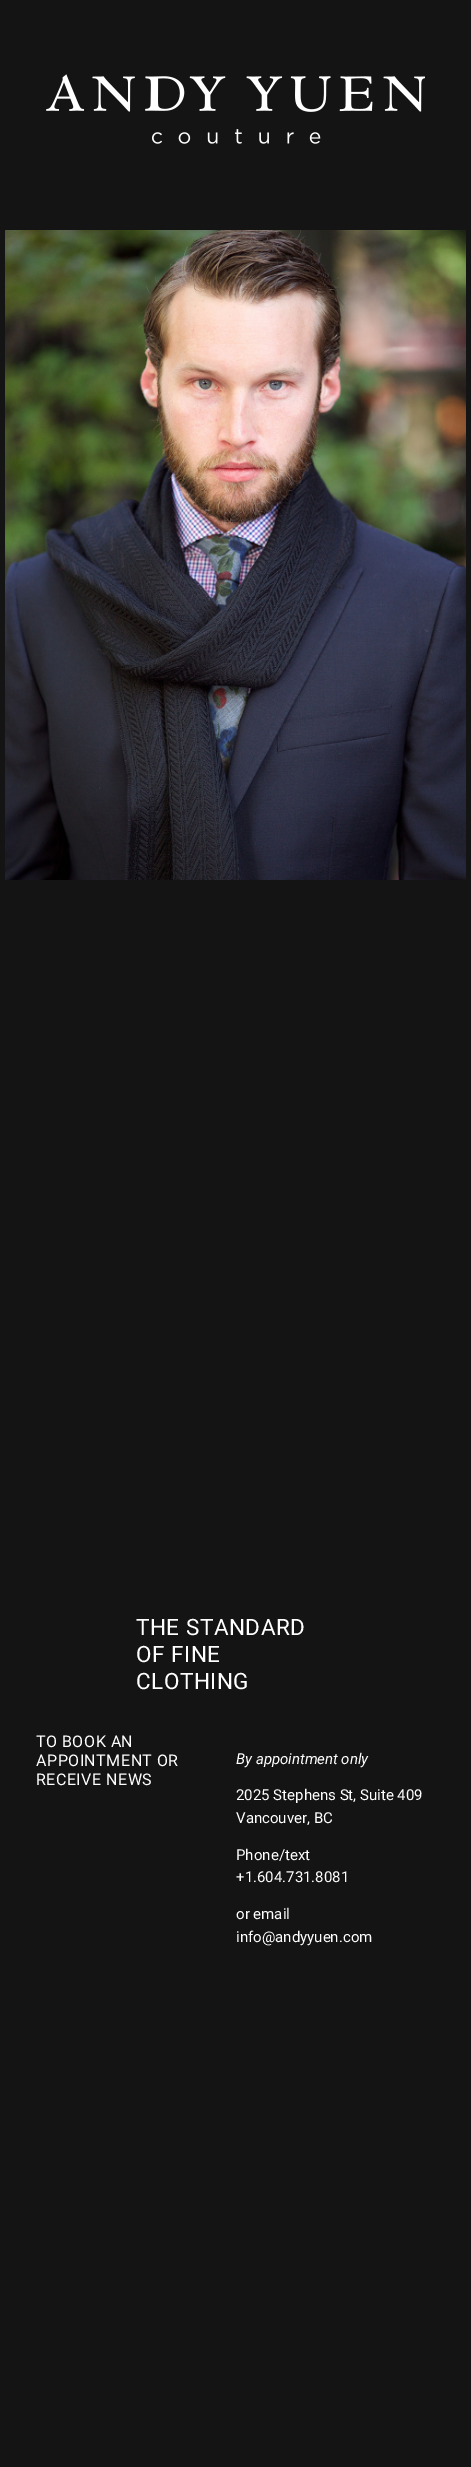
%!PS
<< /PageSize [471 2467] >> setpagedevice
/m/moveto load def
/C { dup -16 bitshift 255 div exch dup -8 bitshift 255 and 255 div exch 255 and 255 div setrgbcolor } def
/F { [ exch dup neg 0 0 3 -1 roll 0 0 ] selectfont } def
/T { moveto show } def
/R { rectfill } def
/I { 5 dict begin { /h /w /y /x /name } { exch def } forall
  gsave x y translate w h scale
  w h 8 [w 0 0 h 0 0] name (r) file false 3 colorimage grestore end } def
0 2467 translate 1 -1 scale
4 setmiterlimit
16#141414 C
0 0 471 2467 R
(1.rgb) 46 74 379 70 I
(2.rgb) 5 230 461 650 I
/Roboto-Regular 22.5 F
16#FFFFFF C
136 1635 m .5 0 (THE STANDARD) ashow
136 1662 m .5 0 (OF FINE) ashow
136 1689 m .5 0 (CLOTHING) ashow
/Roboto-Regular 16 F
36 1747 m .5 0 (TO BOOK AN) ashow
36 1766 m .5 0 (APPOINTMENT OR) ashow
36 1785 m .5 0 (RECEIVE NEWS) ashow
/Roboto-Italic 15 F
(By appointment only) 236 1764 T
/Roboto-Regular 15 F
(2025 Stephens St, Suite 409) 236 1800 T
(Vancouver, BC) 236 1823 T
(Phone/text) 236 1860 T
(+1.604.731.8081) 236 1882 T
(or email) 236 1919 T
(info@andyyuen.com) 236 1942 T
showpage
